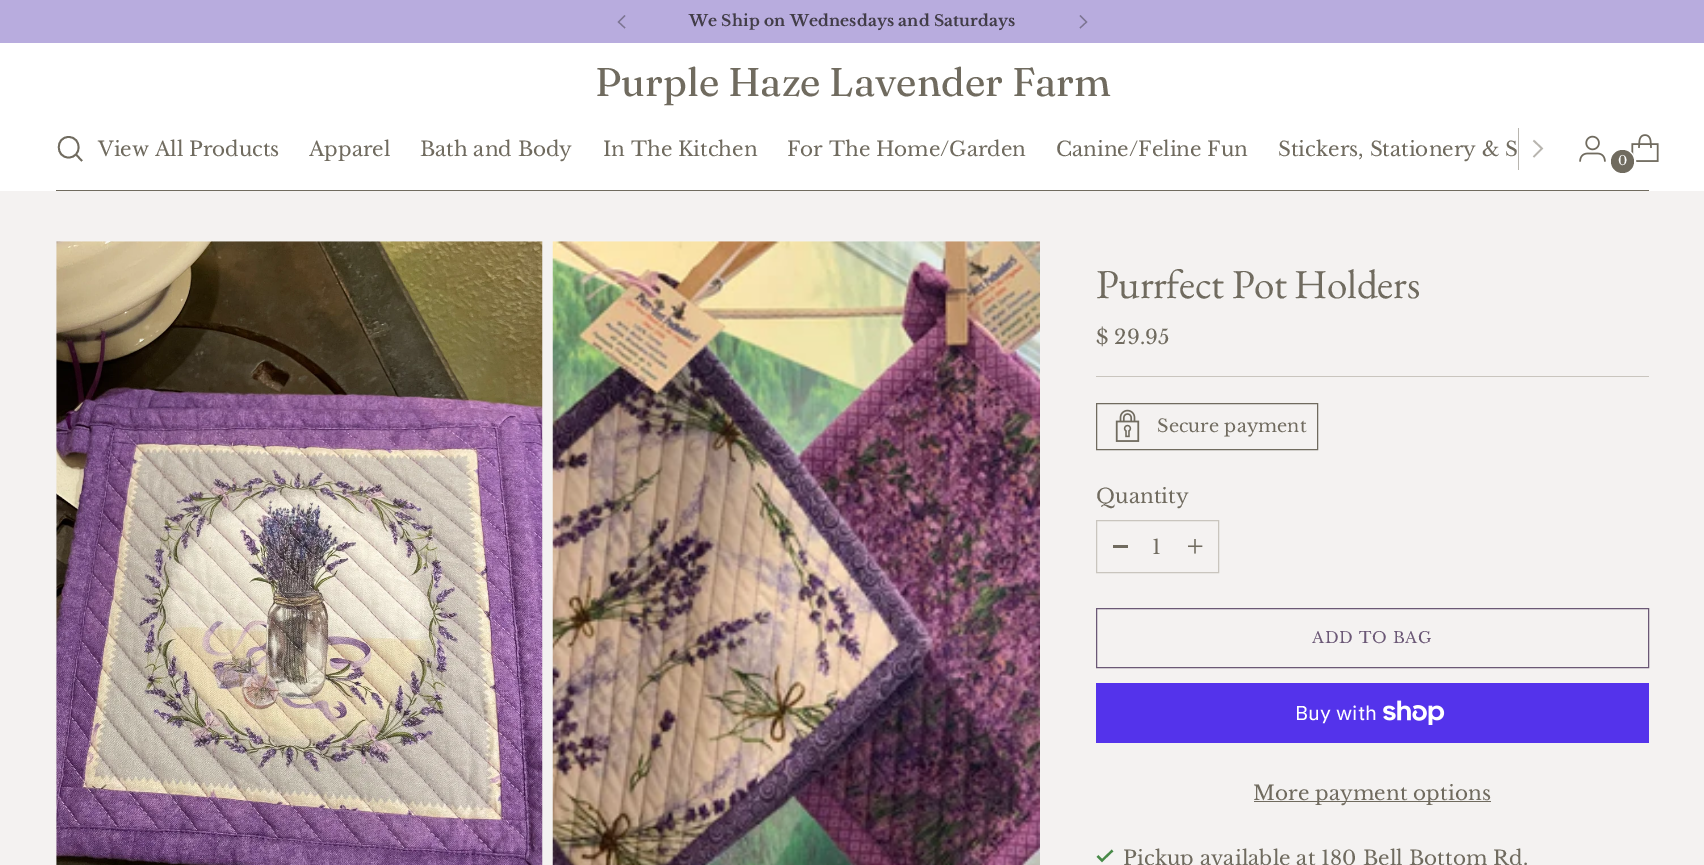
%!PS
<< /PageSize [1704 865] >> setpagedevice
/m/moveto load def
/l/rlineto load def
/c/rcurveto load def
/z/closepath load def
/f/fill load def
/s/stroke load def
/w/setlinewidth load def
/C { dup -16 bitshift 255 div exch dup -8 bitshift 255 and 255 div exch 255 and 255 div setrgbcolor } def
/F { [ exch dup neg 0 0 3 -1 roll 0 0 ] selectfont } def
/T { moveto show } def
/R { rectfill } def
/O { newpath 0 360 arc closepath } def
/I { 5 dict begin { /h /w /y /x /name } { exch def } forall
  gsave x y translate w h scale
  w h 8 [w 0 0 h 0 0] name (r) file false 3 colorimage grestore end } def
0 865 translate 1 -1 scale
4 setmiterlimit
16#F4F2F1 C
0 0 1704 865 R
16#B8ACDE C
0 0 1704 43 R
/LibreBaskerville-Bold 15.5 F
16#423D48 C
689 26 m .1 0 (We Ship on Wednesdays and Saturdays) ashow
16#7D7593 C
1.2 w
625 15.5 m -6.5 6.5 l 6.5 6 l s
1080 28 m 6.5 -6 l -6.5 -6.5 l s
16#FFFFFF C
0 43 1704 148 R
16#706B5F C
56 190 1593 1 R
/Fraunces-Regular 40 F
(Purple Haze Lavender Farm) 595 96 T
1.8 w
1 setlinecap
68.5 157.5 m 13.5 0 13.5 -20.5 0 -20.5 c -13 0 -13 20.5 0 20.5 c z s
0 setlinecap
76 154.5 m 6 6.5 l s
/LibreBaskerville-Regular 20 F
(View All Products) 98 156 T
(Apparel) 309 156 T
(Bath and Body) 420 156 T
(In The Kitchen) 603 156 T
(For The Home/Garden) 787 156 T
(Canine/Feline Fun) 1056 156 T
(Stickers, Stationery & S) 1278 156 T
16#B8B5AF C
1518 128 1 42 R
1.7 w
1533.5 157 m 8.5 -8.5 l -8.5 -8 l s
(1.rgb) 1579 135 27 27 I
(2.rgb) 1631 134 28 28 I
16#FFFFFF C
2 w
1623 162 12 O s
16#706B5F C
1622.5 161.5 11.5 O f
/LibreBaskerville-Regular 13 F
16#FFFFFF C
1618 165 m .1 0 (0) ashow
(3.rgb) 56 241 487 624 I
(4.rgb) 552 241 488 624 I
16#C9C5BE C
1096 376 553 1 R
/EBGaramond-Regular 41.25 F
16#706B5F C
1096 298 m -.4 0 (Purrfect Pot Holders) ashow
/LibreBaskerville-Regular 20 F
1096 344 m .1 0 ($ 29.95) ashow
1 w
1096.5 403.5 221 46 rectstroke
(5.rgb) 1115 409 25 33 I
/LibreBaskerville-Regular 17.75 F
1157 432 m .1 0 (Secure payment) ashow
/LibreBaskerville-Regular 20 F
1096 503 m .1 0 (Quantity) ashow
16#C9C5BE C
1096.5 520.5 122 52 rectstroke
16#706B5F C
1113 545 15 3 R
(1) 1152 554 T
(6.rgb) 1188 539 15 15 I
16#6B5876 C
1096.5 608.5 552 59 rectstroke
/LibreBaskerville-Regular 15.5 F
1312 643 m .75 0 (ADD TO BAG) ashow
16#5433EB C
1096 683 553 60 R
/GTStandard-Regular 20 F
16#FFFFFF C
1295 720 m .1 0 (Buy with) ashow
(7.rgb) 1383 700 62 25 I
16#706B5F C
1254 801 237 1 R
/LibreBaskerville-Regular 20 F
1253 800 m .1 0 (More payment options) ashow
16#478947 C
2.2 w
1097.5 856 m 4.5 4.5 l 10.5 -10 l s
16#706B5F C
1123 865 m .1 0 (Pickup available at 180 Bell Bottom Rd.) ashow
showpage
